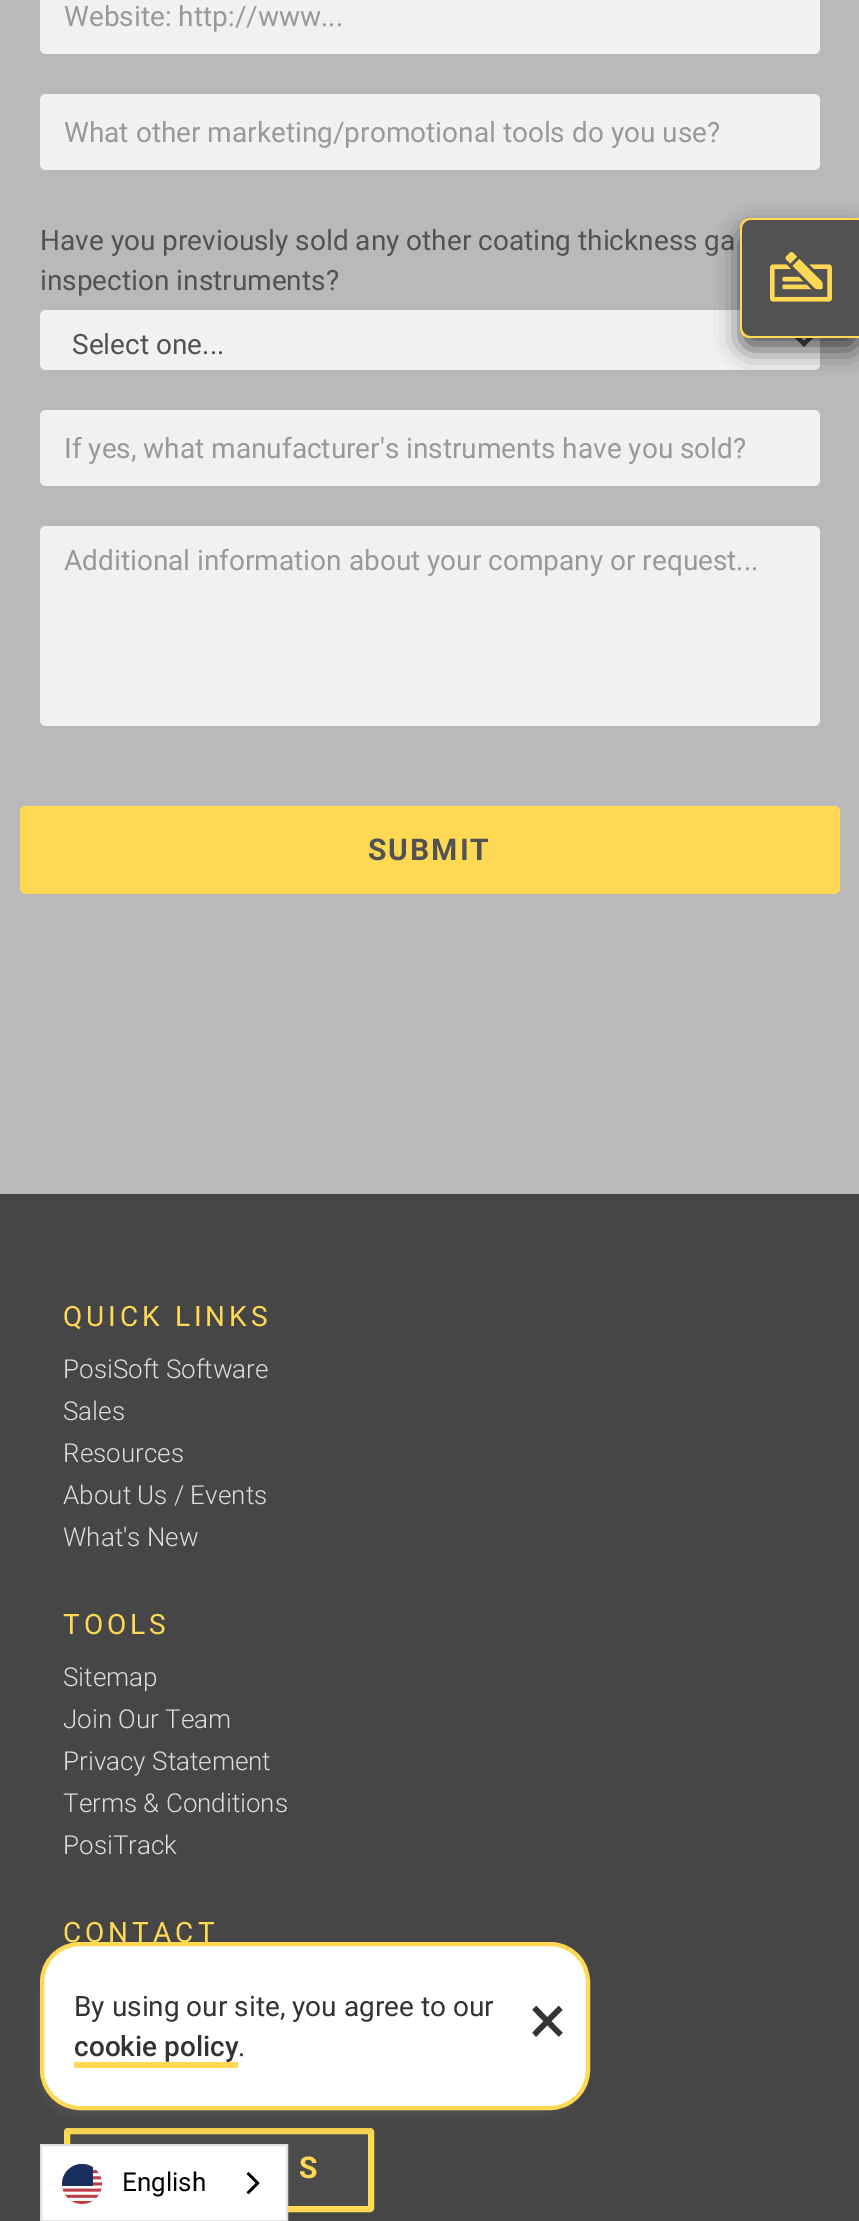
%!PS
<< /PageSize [859 2221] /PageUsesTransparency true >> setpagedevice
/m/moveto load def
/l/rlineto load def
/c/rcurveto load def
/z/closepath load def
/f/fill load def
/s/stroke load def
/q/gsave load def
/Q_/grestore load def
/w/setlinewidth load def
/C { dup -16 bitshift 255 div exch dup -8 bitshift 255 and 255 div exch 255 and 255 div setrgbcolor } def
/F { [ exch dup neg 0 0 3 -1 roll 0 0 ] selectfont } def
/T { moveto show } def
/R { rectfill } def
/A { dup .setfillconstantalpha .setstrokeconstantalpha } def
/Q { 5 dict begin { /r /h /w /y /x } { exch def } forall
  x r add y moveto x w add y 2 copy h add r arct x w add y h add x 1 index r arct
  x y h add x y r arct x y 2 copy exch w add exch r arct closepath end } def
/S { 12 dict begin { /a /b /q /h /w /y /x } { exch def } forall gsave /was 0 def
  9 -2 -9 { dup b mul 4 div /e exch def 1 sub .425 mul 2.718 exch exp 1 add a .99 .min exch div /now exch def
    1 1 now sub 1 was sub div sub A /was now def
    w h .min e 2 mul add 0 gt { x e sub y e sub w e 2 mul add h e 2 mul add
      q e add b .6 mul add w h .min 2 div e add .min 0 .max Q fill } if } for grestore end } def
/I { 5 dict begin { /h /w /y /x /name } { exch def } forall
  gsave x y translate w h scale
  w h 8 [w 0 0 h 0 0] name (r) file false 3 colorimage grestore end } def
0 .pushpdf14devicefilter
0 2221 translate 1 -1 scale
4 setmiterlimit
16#B9B9B9 C
0 0 859 2221 R
16#F1F1F1 C
40 -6 780 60 6 Q f
/Roboto-Regular 28 F
16#999999 C
(Website: http://www...) 64 26 T
16#F1F1F1 C
40 94 780 76 6 Q f
16#999999 C
(What other marketing/promotional tools do you use?) 64 142 T
16#525252 C
(Have you previously sold any other coating thickness ga) 40 250 T
(inspection instruments?) 40 290 T
16#F1F1F1 C
40 310 780 60 6 Q f
16#525252 C
4 w
796 336 m 8 8 l 8 -8 l s
(Select one...) 72 354 T
16#F1F1F1 C
40 410 780 76 6 Q f
16#999999 C
(If yes, what manufacturer's instruments have you sold?) 64 458 T
16#F1F1F1 C
40 526 780 200 6 Q f
16#999999 C
(Additional information about your company or request...) 64 570 T
16#FFD854 C
20 806 820 88 6 Q f
/Roboto-Bold 30 F
16#525252 C
368 860 m 2 0 (SUBMIT) ashow
16#000000 C
740 230 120 120 10 12 .62 S
16#525252 C
750 218 m 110 0 l 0 120 l -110 0 l -5.5 0 -10 -4.5 -10 -10 c 0 -100 l 0 -5.5 4.5 -10 10 -10 c z f
16#FFD854 C
750 218 m 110 0 l 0 120 l -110 0 l -6 0 -10 -4 -10 -10 c 0 -100 l 0 -6 4 -10 10 -10 c z 750 220 m 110 0 l 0 116 l -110 0 l -4 0 -8 -4 -8 -8 c 0 -100 l 0 -4 4 -8 8 -8 c z eofill
(1.rgb) 770 252 62 50 I
16#464646 C
0 1194 859 1027 R
/Roboto-Regular 28 F
16#FFD854 C
63 1326 m 4 0 (QUICK LINKS) ashow
/Roboto-Light 26 F
16#DDDDDD C
(PosiSoft Software) 63 1378 T
(Sales) 63 1420 T
(Resources) 63 1462 T
(About Us / Events) 63 1504 T
(What's New) 63 1546 T
/Roboto-Regular 28 F
16#FFD854 C
63 1634 m 4 0 (TOOLS) ashow
/Roboto-Light 26 F
16#DDDDDD C
(Sitemap) 63 1686 T
(Join Our Team) 63 1728 T
(Privacy Statement) 63 1770 T
(Terms & Conditions) 63 1812 T
(PosiTrack) 63 1854 T
/Roboto-Regular 28 F
16#FFD854 C
63 1942 m 4 0 (CONTACT) ashow
16#4B4B4B C
67 2131 304 78 1 Q q f Q_
16#FFD854 C
6 w
s
/Roboto-Bold 30 F
299 2178 m 2 0 (S) ashow
16#525252 C
42 1966 530 148 30 9 1 S
16#FFFFFF C
42 1944 546 164 38 Q q f Q_
16#FFD854 C
4 w
s
/Roboto-Regular 28 F
16#333333 C
(By using our site, you agree to our) 74 2016 T
/Roboto-Medium 28 F
(cookie policy) 74 2056 T
16#FFD854 C
74 2062 164 6 R
/Roboto-Regular 28 F
16#333333 C
(.) 238 2056 T
/Roboto-Regular 70 F
(×) 529 2044 T
16#FFFFFF C
41 2145 m 246 0 l 0 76 l -246 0 l z q f Q_
16#E0E0E0 C
2 w
s
(2.rgb) 62 2164 40 40 I
/Roboto-Regular 26 F
16#000000 C
(English) 122 2191 T
(3.rgb) 246 2172 14 22 I
.poppdf14devicefilter showpage
